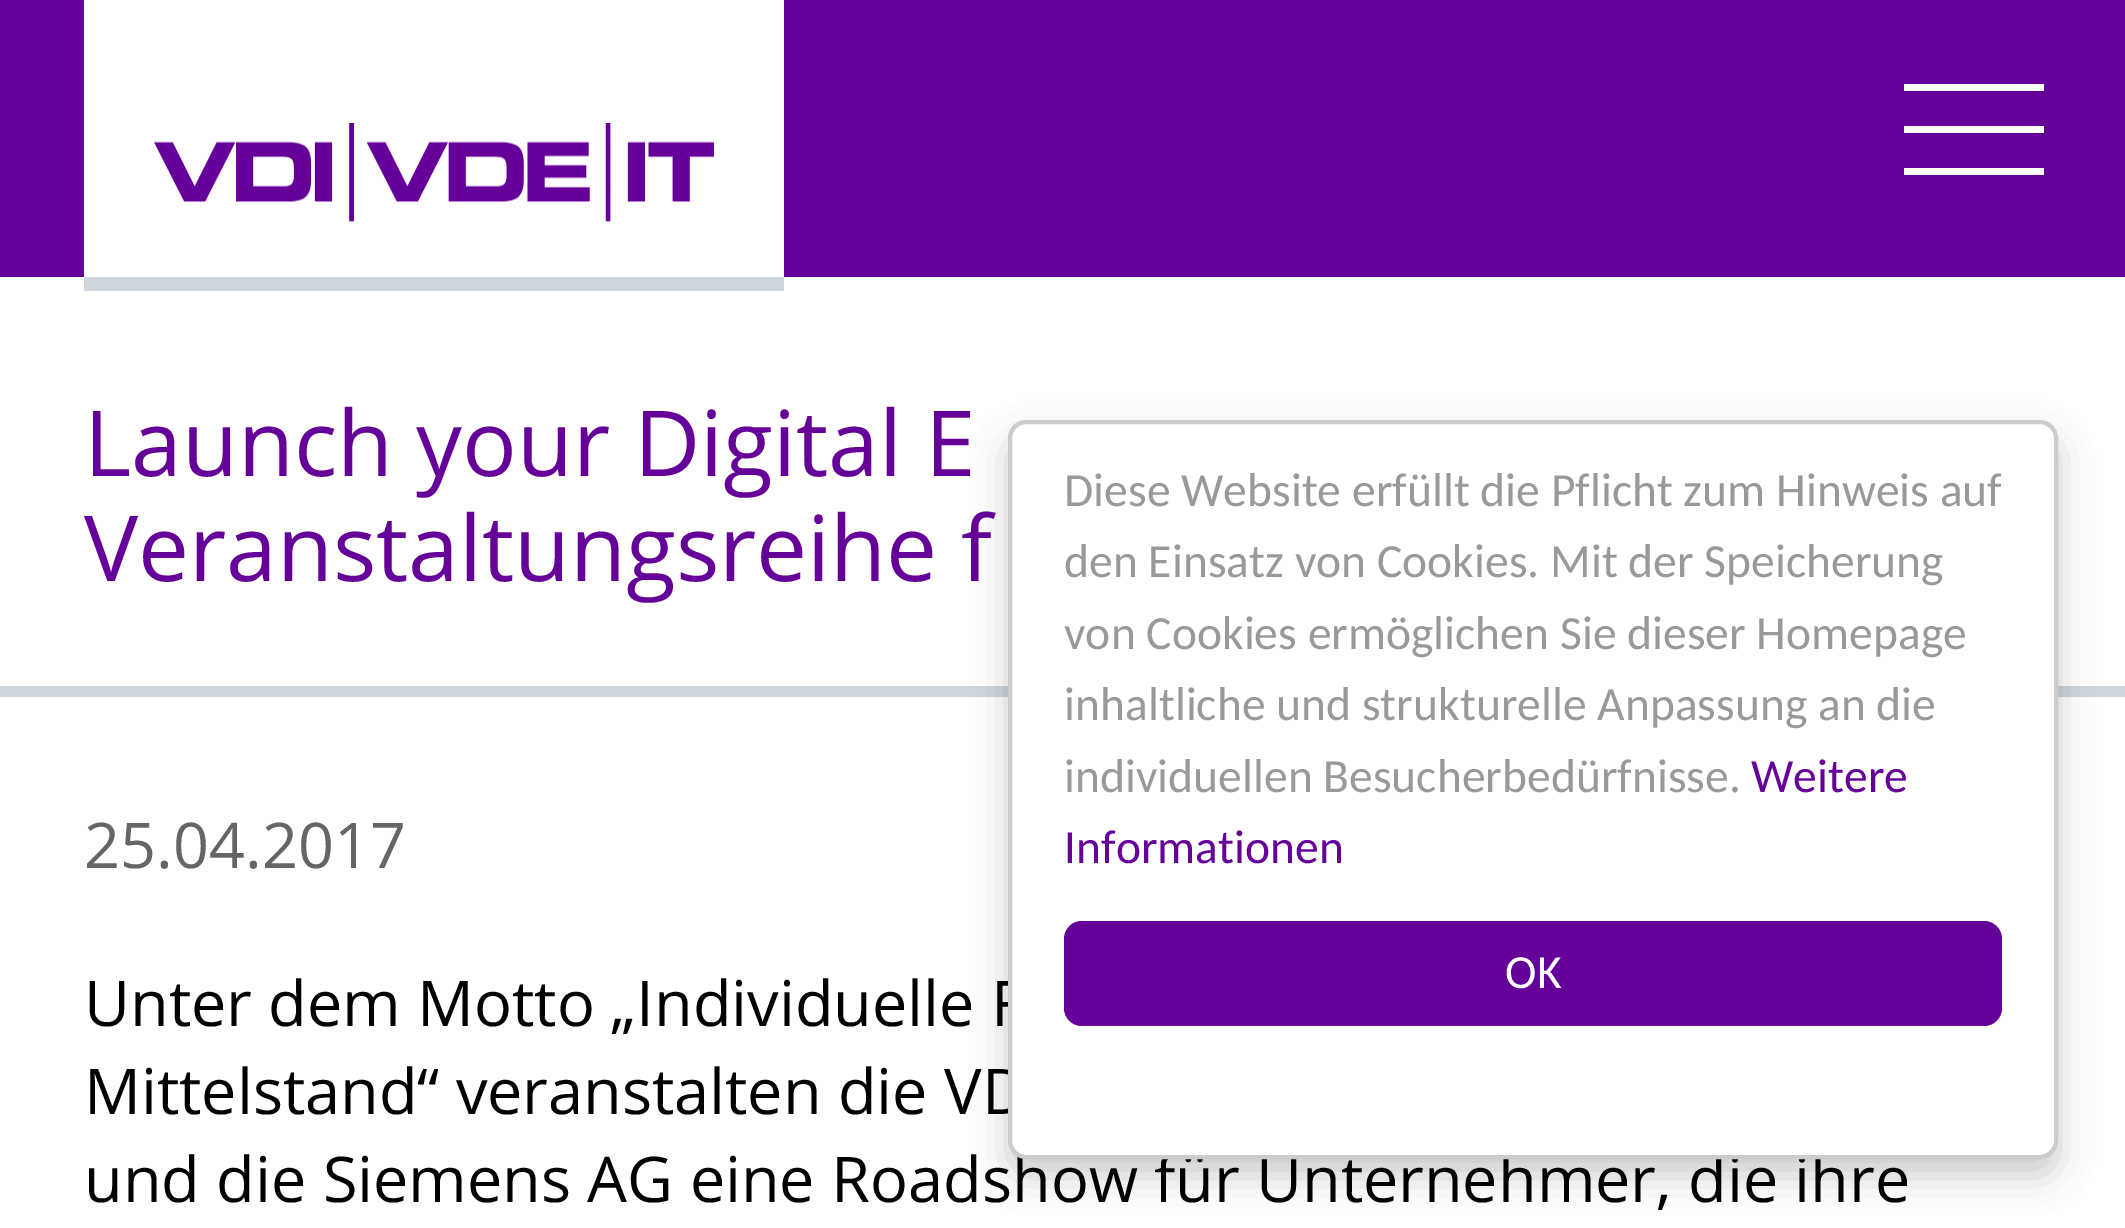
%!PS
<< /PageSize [2125 1228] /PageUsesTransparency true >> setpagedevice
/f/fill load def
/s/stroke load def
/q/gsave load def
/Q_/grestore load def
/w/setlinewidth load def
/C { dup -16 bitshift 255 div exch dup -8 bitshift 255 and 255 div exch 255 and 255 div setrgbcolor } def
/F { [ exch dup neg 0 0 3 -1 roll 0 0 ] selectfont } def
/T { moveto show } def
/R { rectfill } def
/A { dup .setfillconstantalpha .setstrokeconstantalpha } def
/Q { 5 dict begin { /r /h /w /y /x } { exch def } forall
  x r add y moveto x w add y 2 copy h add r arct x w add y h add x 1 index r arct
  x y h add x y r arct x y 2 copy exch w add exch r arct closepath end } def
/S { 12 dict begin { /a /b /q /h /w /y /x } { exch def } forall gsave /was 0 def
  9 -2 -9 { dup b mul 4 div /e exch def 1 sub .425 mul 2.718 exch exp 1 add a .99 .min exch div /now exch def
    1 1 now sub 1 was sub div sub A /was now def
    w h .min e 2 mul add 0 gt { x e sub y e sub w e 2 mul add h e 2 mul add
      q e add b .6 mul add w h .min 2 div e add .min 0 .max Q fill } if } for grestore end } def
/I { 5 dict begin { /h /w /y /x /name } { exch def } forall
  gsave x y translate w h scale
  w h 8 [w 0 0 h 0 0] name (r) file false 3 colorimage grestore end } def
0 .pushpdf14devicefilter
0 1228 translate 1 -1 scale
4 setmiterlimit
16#FFFFFF C
0 0 2125 1228 R
16#650098 C
0 0 2125 277 R
16#CFD7DC C
84 277 700 14 R
16#FFFFFF C
84 0 700 277 R
(1.rgb) 154 123 560 99 I
1904 126 140 7 R
1904 84 140 7 R
1904 168 140 7 R
16#CFD7DC C
0 686 2125 11 R
/OpenSans-Regular 91 F
16#650098 C
(Launch your Digital E) 84 476 T
(Veranstaltungsreihe f) 84 581 T
/OpenSans-Regular 63 F
16#656565 C
(25.04.2017) 84 868 T
16#000100 C
(Unter dem Motto „Individuelle F) 84 1026 T
(Mittelstand“ veranstalten die VD) 84 1114 T
(und die Siemens AG eine Roadshow für Unternehmer, die ihre) 84 1202 T
16#000000 C
1008 438 1050 738 18 17.5 .2 S
16#FFFFFF C
1010 422 1046 735 16 Q q f Q_
16#CCCCCC C
4 w
s
/Carlito-Regular 47.6 F
16#999999 C
(Diese Website erfüllt die Pflicht zum Hinweis auf) 1064 506 T
(den Einsatz von Cookies. Mit der Speicherung) 1064 577 T
(von Cookies ermöglichen Sie dieser Homepage) 1064 649 T
(inhaltliche und strukturelle Anpassung an die) 1064 720 T
(individuellen Besucherbedürfnisse.) 1064 792 T
16#650098 C
(Weitere) 1751 792 T
(Informationen) 1064 863 T
1064 921 938 105 18 Q f
16#FFFFFF C
(OK) 1505 988 T
.poppdf14devicefilter showpage
